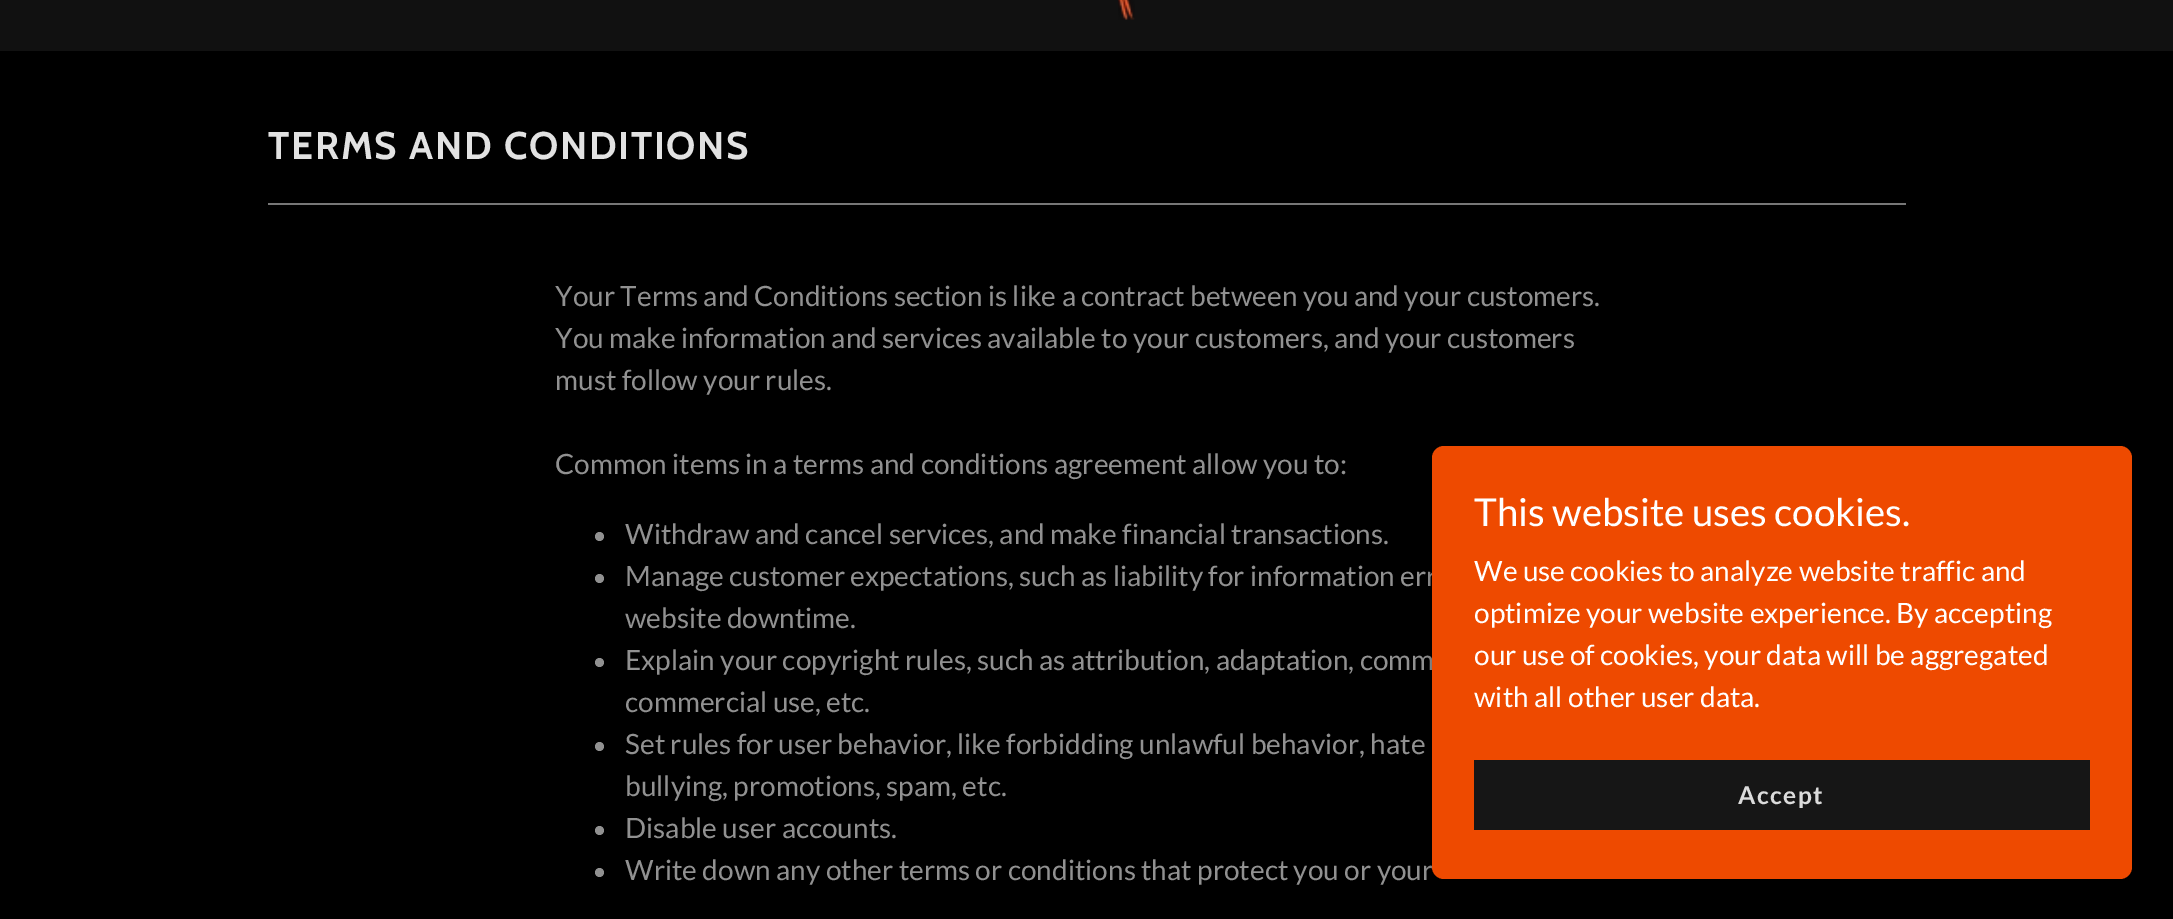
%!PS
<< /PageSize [2173 919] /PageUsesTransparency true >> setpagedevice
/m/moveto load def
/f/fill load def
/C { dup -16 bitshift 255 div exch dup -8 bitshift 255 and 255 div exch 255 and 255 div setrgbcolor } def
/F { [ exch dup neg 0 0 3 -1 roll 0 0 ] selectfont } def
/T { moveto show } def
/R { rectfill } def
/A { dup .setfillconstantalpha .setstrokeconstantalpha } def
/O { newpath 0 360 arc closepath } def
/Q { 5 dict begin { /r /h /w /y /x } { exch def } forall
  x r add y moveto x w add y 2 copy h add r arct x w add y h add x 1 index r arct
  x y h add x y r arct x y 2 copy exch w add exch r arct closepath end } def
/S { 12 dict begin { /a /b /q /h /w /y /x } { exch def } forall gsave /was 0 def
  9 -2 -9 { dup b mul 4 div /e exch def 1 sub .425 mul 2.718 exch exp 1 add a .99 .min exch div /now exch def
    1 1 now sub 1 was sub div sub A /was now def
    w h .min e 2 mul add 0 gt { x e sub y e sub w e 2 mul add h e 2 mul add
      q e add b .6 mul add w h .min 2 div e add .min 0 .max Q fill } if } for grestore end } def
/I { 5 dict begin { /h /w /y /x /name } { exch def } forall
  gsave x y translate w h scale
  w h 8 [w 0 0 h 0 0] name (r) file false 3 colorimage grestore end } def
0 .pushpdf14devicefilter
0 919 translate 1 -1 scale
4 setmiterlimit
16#000000 C
0 0 2173 919 R
16#111111 C
0 0 2173 51 R
(1.rgb) 1118 0 17 20 I
/Cabin-Bold 38.5 F
16#E2E2E2 C
268 159 m 1.75 0 (TERMS AND CONDITIONS) ashow
16#777777 C
268 203 1638 2 R
/Lato-Regular 28 F
16#919191 C
(Your Terms and Conditions section is like a contract between you and your customers.) 555 306 T
(You make information and services available to your customers, and your customers) 555 348 T
(must follow your rules.) 555 390 T
(Common items in a terms and conditions agreement allow you to:) 555 474 T
599.5 536.5 4.5 O f
(Withdraw and cancel services, and make financial transactions.) 625 544 T
599.5 578.5 4.5 O f
(Manage customer expectations, such as liability for information err) 625 586 T
(website downtime.) 625 628 T
599.5 662.5 4.5 O f
(Explain your copyright rules, such as attribution, adaptation, comm) 625 670 T
(commercial use, etc.) 625 712 T
599.5 746.5 4.5 O f
(Set rules for user behavior, like forbidding unlawful behavior, hate) 625 754 T
(bullying, promotions, spam, etc.) 625 796 T
599.5 830.5 4.5 O f
(Disable user accounts.) 625 838 T
599.5 872.5 4.5 O f
(Write down any other terms or conditions that protect you or your) 625 880 T
16#000000 C
1432 450 700 432 12 5 .3 S
16#EE4A00 C
1432 446 700 433 12 Q f
/Lato-Regular 38.5 F
16#FFFFFF C
(This website uses cookies.) 1474 526 T
/Lato-Regular 28 F
(We use cookies to analyze website traffic and) 1474 581 T
(optimize your website experience. By accepting) 1474 623 T
(our use of cookies, your data will be aggregated) 1474 665 T
(with all other user data.) 1474 707 T
16#161616 C
1474 760 616 70 R
/Lato-Bold 24.5 F
16#DBDBDB C
1738 804 m 1.5 0 (Accept) ashow
.poppdf14devicefilter showpage
